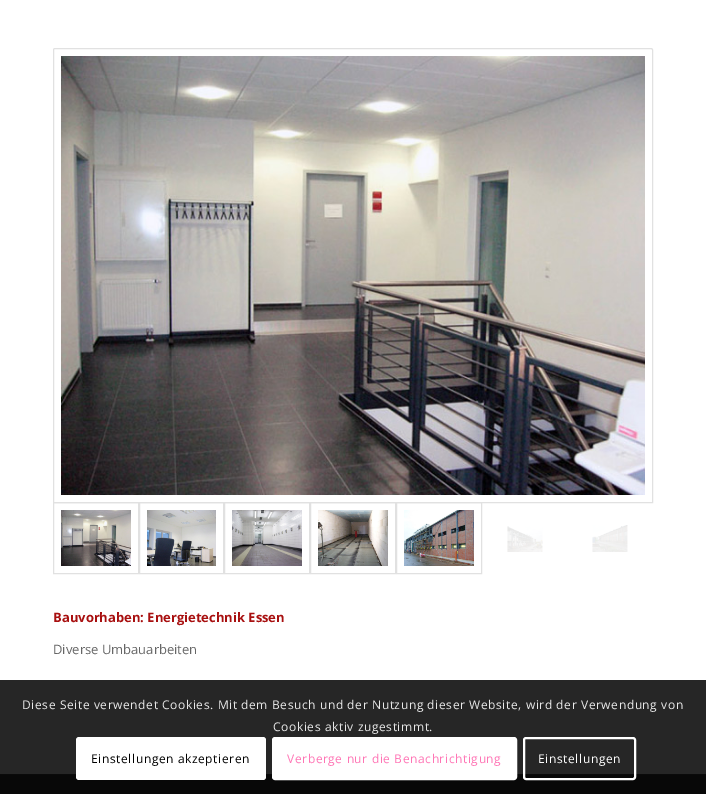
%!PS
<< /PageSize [706 794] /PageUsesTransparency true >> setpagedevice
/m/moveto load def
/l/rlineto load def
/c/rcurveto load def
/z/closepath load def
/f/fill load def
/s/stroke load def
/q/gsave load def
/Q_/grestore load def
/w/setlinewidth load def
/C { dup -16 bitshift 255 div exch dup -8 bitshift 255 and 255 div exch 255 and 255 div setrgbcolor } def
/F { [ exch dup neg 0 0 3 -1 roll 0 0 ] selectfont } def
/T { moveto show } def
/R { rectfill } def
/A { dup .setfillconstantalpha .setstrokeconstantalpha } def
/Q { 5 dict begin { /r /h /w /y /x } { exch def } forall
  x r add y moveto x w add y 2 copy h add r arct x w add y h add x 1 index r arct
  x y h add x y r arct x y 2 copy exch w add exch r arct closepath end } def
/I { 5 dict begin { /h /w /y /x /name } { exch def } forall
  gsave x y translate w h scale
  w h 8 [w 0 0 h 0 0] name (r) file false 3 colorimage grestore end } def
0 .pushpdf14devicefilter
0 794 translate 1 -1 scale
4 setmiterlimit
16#FFFFFF C
0 0 706 794 R
16#E1E1E1 C
55 48.5 m 596 0 l 1 0 1.5 .5 1.5 1.5 c 0 452.5 l -599 0 l 0 -452.5 l 0 -1 .5 -1.5 1.5 -1.5 c z s
(1.rgb) 61 56 584 439 I
53.5 502.5 85 71 rectstroke
(2.rgb) 61 510 70 56 I
139.5 502.5 84 71 rectstroke
(3.rgb) 147 510 69 56 I
224.5 502.5 85 71 rectstroke
(4.rgb) 232 510 70 56 I
310.5 502.5 85 71 rectstroke
(5.rgb) 318 510 70 56 I
396.5 502.5 85 71 rectstroke
(6.rgb) 404 510 70 56 I
(7.rgb) 507 526 36 26 I
(8.rgb) 592 525 36 27 I
/OpenSans-Bold 13 F
16#A81010 C
(Bauvorhaben: Energietechnik Essen) 53 622 T
/OpenSans-Regular 13 F
16#666666 C
(Diverse Umbauarbeiten) 53 654 T
16#333333 C
0 775 706 19 R
16#444444 C
0 774 706 1 R
0.85 A
16#000000 C
0 680 706 114 R
/OpenSans-Regular 12 F
1 A
16#E9E9E9 C
22 709 m .6 0 (Diese Seite verwendet Cookies. Mit dem Besuch und der Nutzung dieser Website, wird der Verwendung von) ashow
273 731 m .6 0 (Cookies aktiv zugestimmt.) ashow
16#FFFFFF C
76 737 190 43 3 Q f
16#000000 C
91 763 m .6 0 (Einstellungen akzeptieren) ashow
16#FFFFFF C
273 738 243 41 2 Q q f Q_
2 w
s
16#FF75B5 C
287 763 m .6 0 (Verberge nur die Benachrichtigung) ashow
16#FFFFFF C
524 738 111 41 2 Q s
538 763 m .6 0 (Einstellungen) ashow
.poppdf14devicefilter showpage
